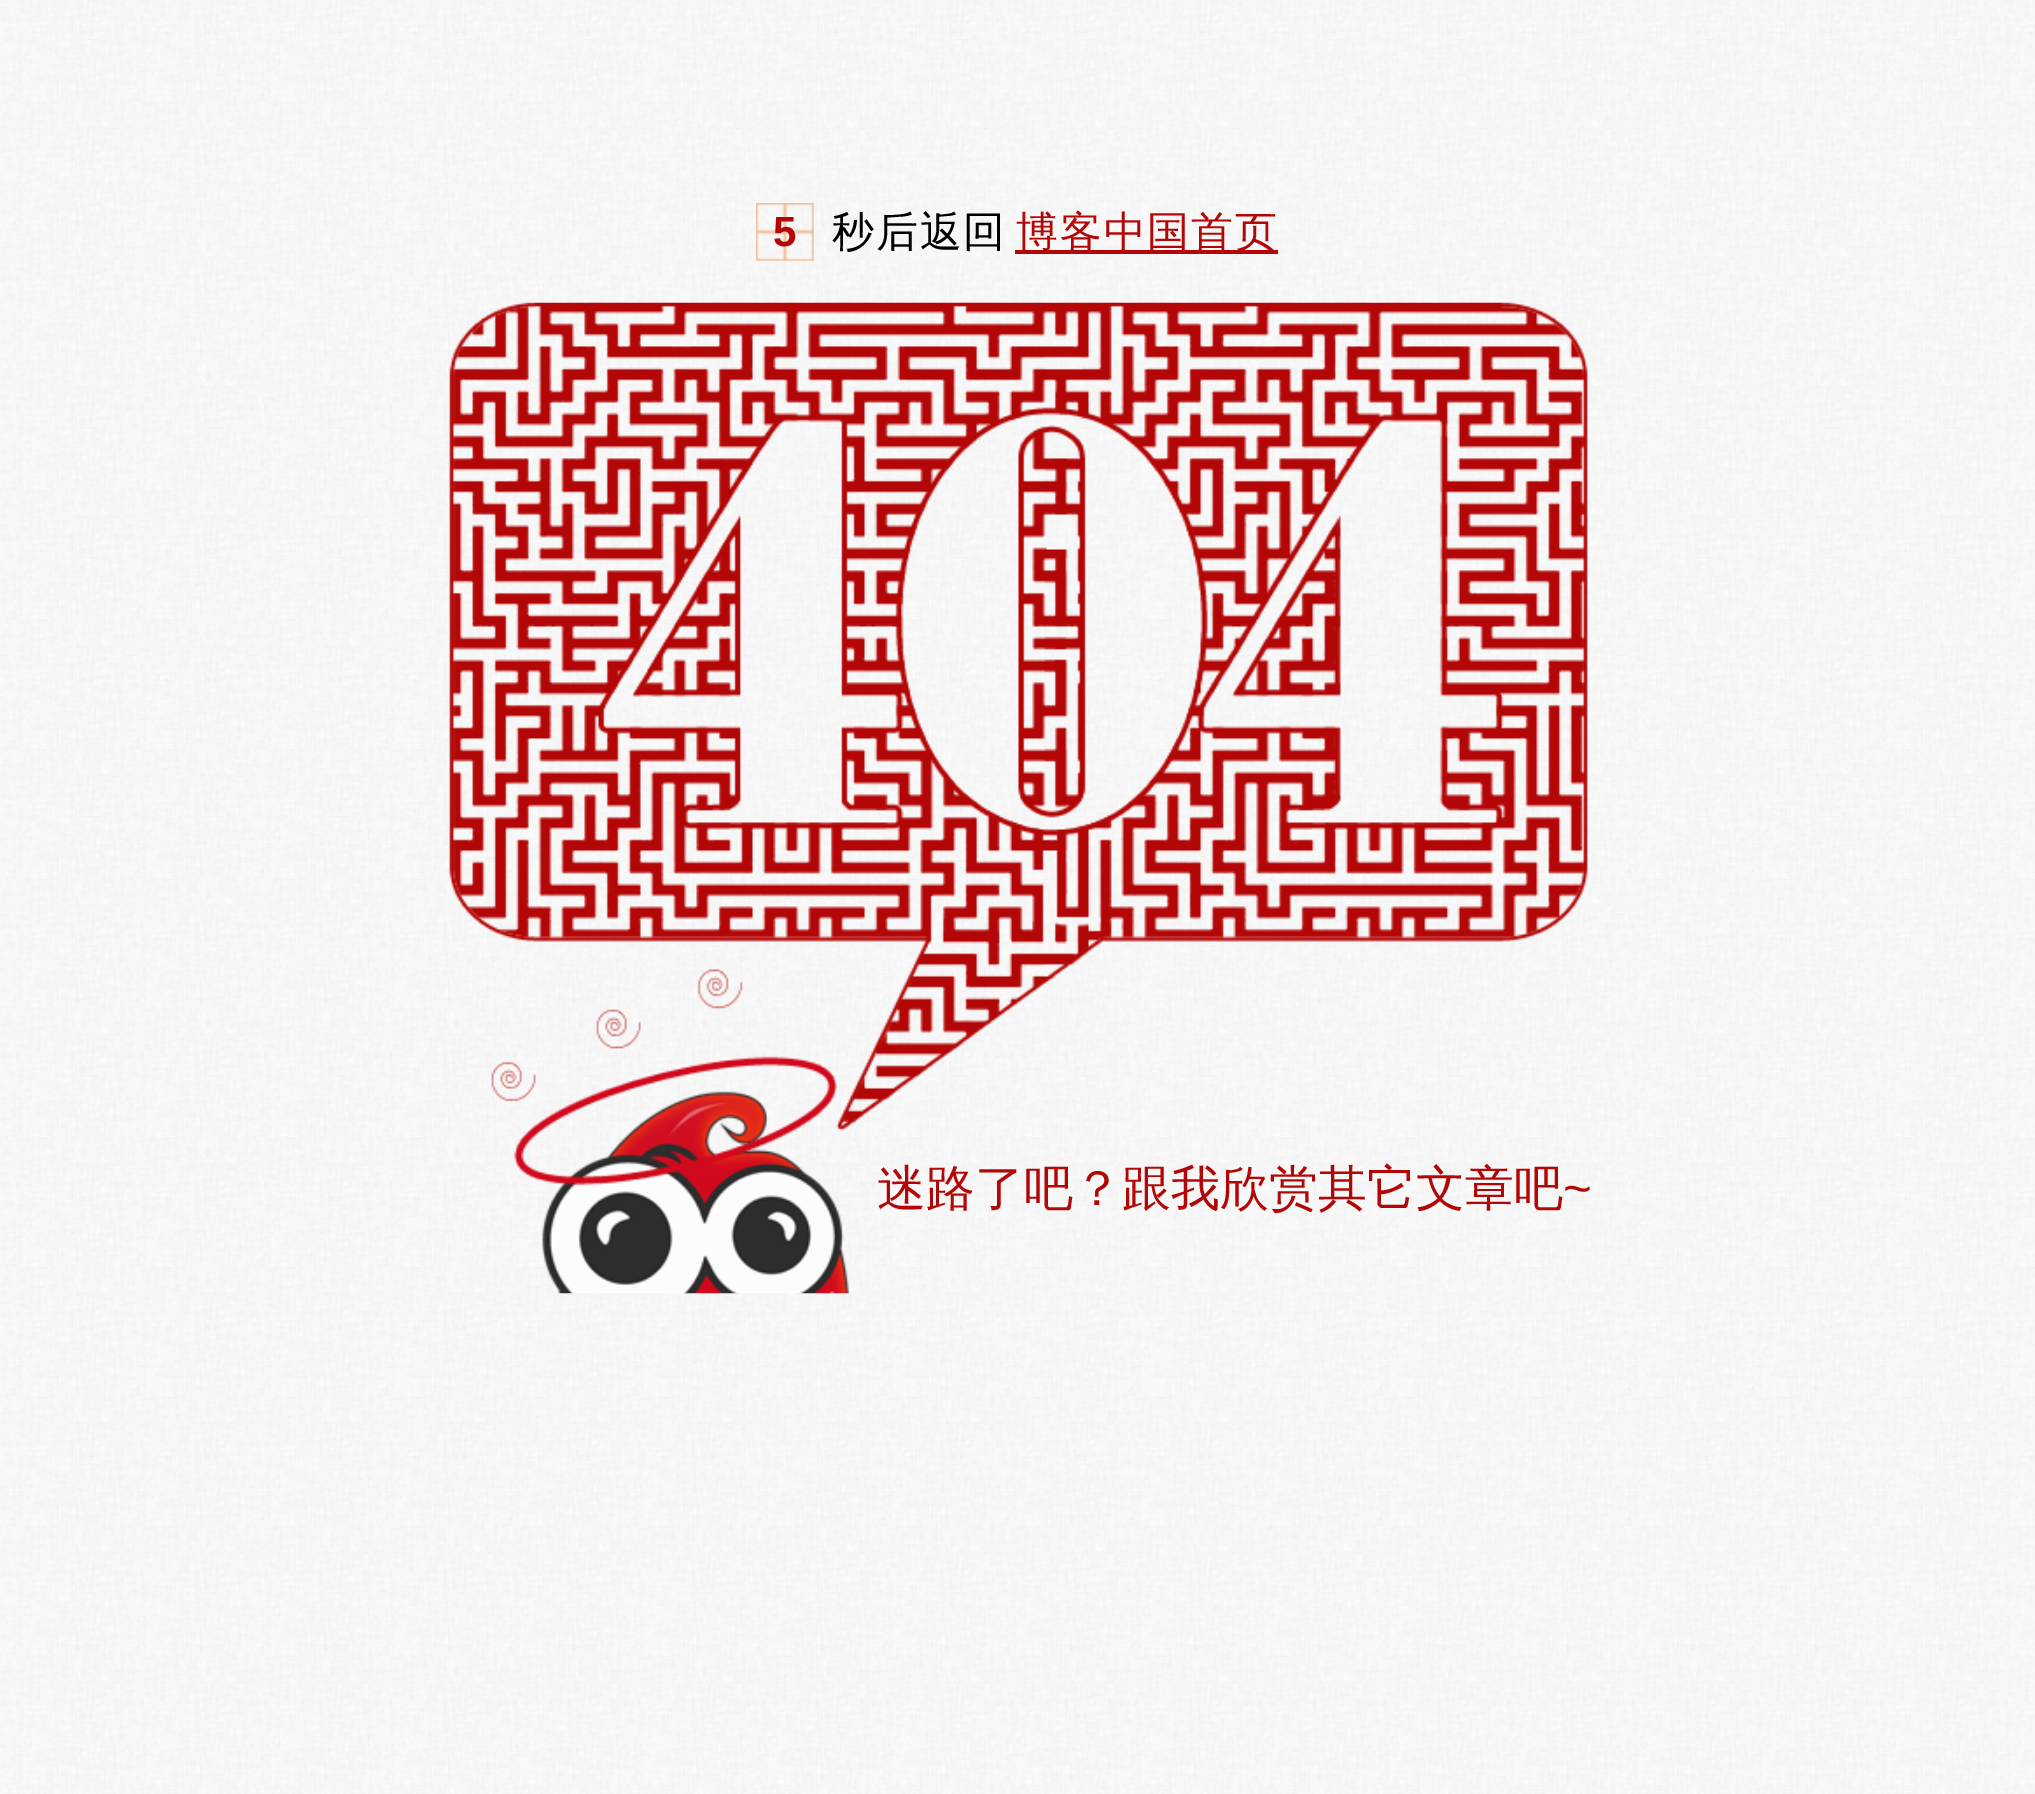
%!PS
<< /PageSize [2035 1794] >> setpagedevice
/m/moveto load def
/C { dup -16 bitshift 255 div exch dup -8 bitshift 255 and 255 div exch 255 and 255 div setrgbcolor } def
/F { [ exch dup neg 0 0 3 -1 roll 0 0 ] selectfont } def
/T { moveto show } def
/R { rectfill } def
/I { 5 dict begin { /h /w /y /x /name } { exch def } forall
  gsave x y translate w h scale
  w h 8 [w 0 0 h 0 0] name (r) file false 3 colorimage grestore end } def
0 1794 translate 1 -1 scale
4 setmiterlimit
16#FFFFFF C
0 0 2035 1794 R
(1.rgb) 0 0 2035 1794 I
(2.rgb) 756 203 58 58 I
/LiberationSans-Bold 42 F
16#B30707 C
773 246 m 1.75 0 (5) ashow
/WenQuanYiZenHei-Medium 42 F
16#000000 C
832 246 m 1.75 0 (秒后返回) ashow
16#B30707 C
1015 250 263 4 R
1016 246 m 1.75 0 (博客中国首页) ashow
(3.rgb) 449 302 1139 829 I
(4.rgb) 491 1009 359 285 I
/WenQuanYiZenHei-Medium 49 F
(迷路了吧？跟我欣赏其它文章吧) 877 1205 T
/LiberationSans-Regular 49 F
(~) 1563 1205 T
showpage
